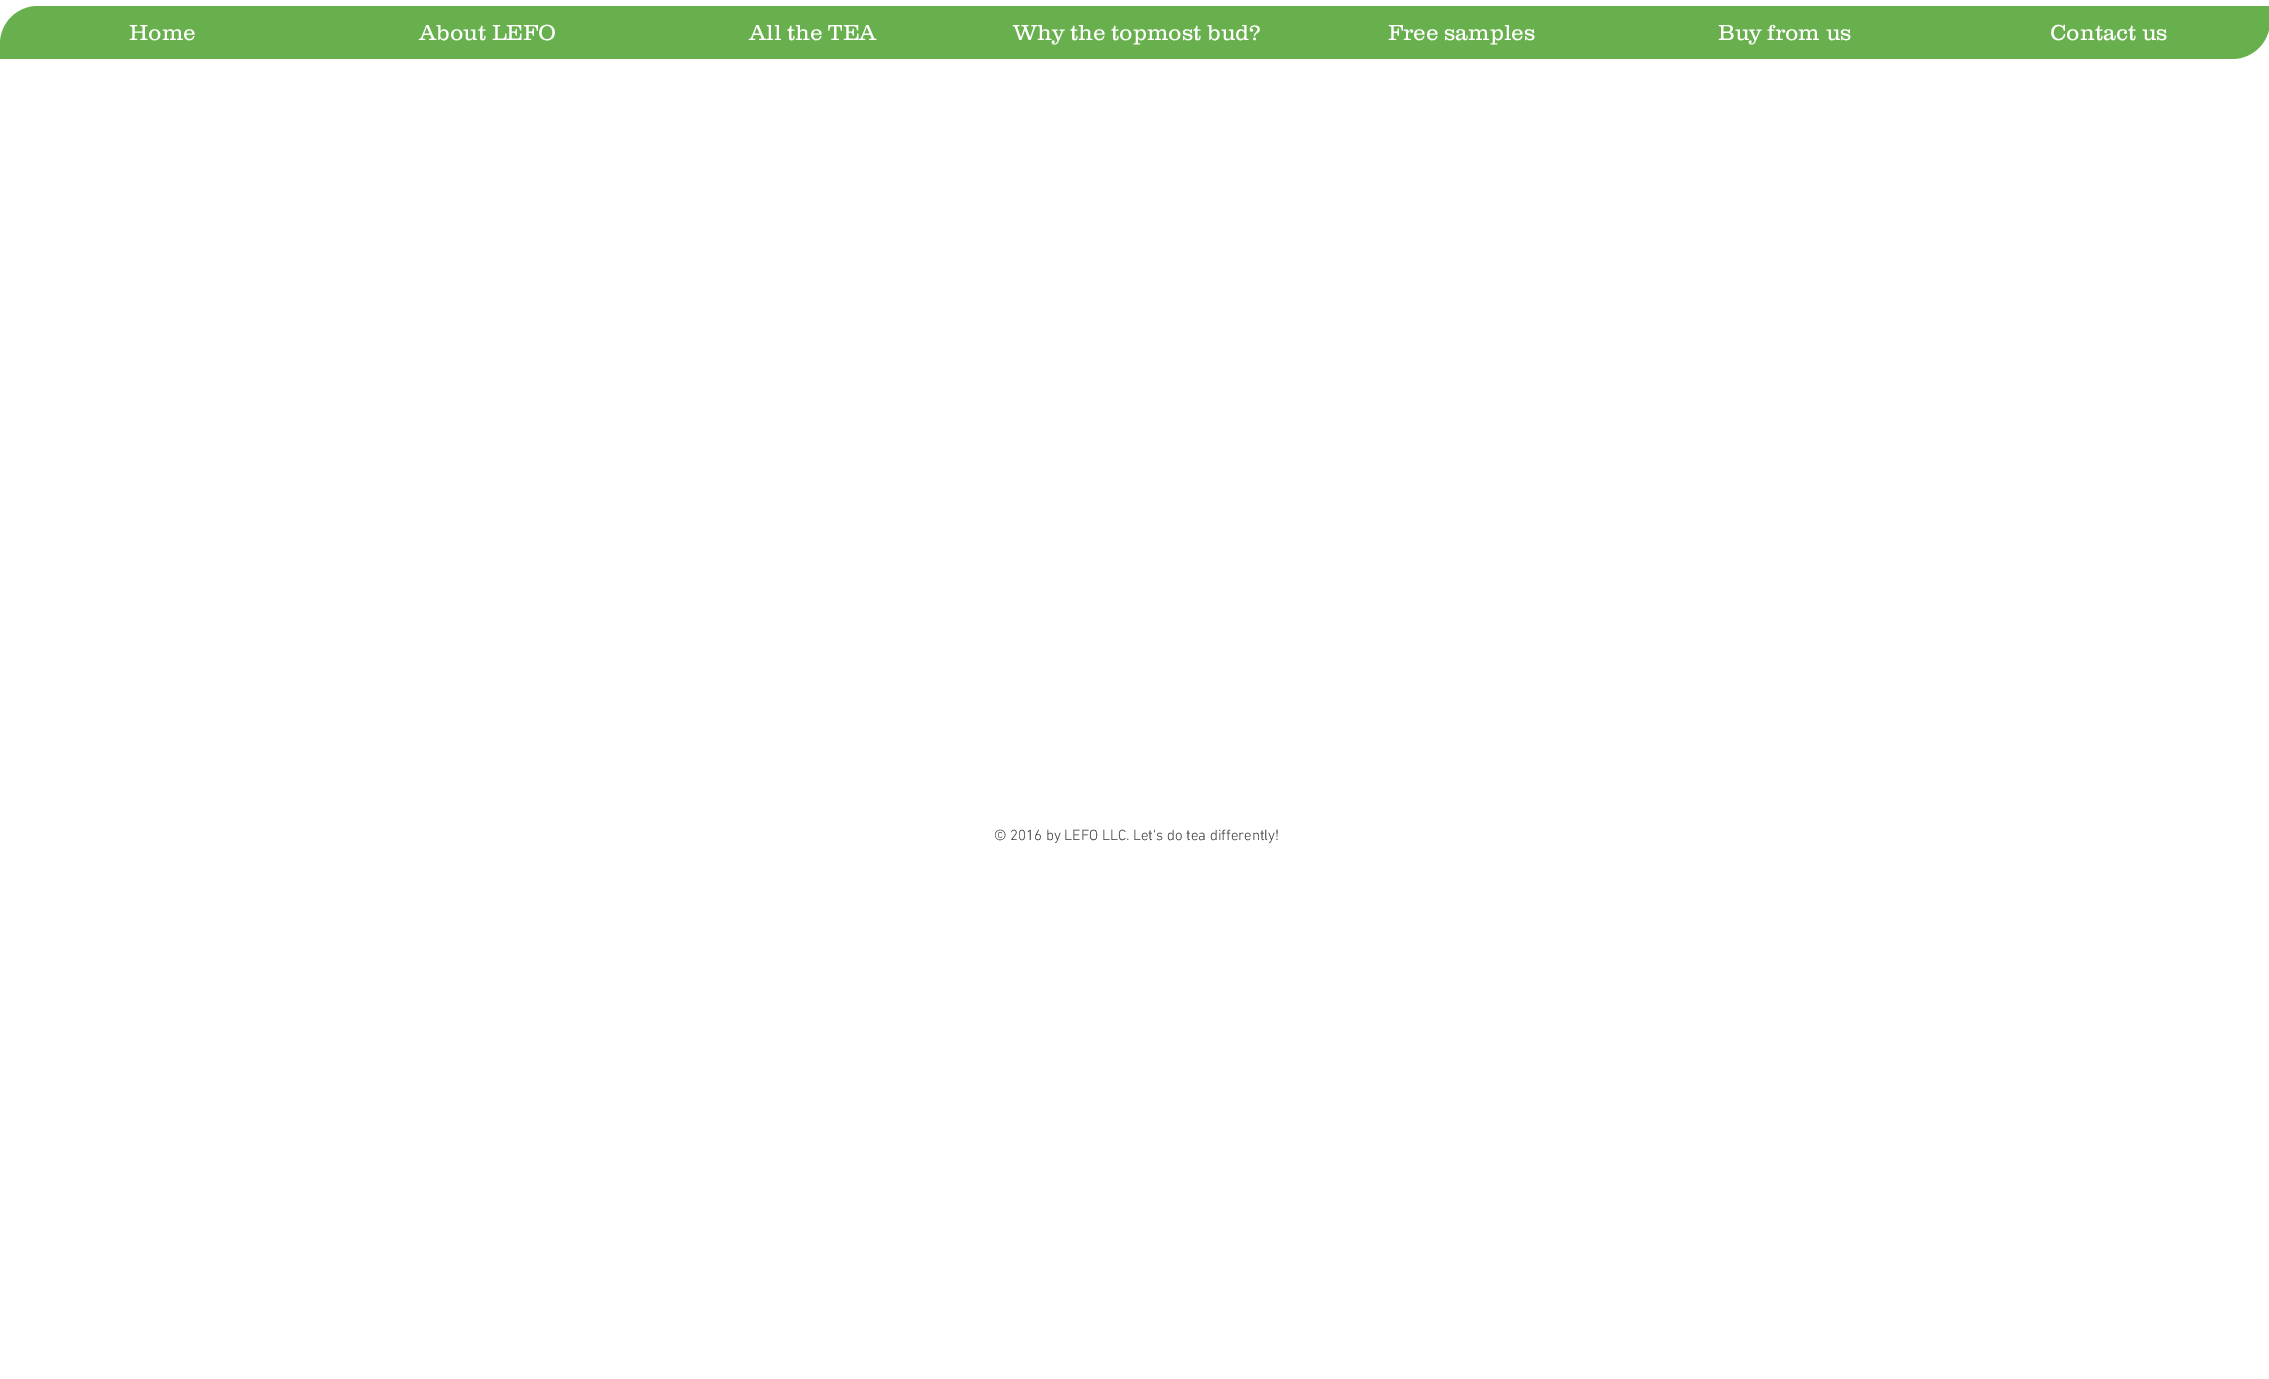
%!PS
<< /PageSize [2269 1379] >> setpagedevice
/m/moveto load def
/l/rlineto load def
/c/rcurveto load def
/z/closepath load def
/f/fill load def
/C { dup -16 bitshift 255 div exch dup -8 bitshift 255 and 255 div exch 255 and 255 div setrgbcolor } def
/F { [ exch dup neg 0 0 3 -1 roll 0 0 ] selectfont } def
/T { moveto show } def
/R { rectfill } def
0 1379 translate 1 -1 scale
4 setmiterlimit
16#FFFFFF C
0 0 2269 1379 R
16#68B04D C
38 6 m 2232 0 l 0 15 l 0 21 -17 38 -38 38 c -2232 0 l 0 -15 l 0 -21 17 -38 38 -38 c z f
/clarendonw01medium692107-Light 22.5 F
16#FFFFFF C
(Home) 129 40 T
(About LEFO) 419 40 T
(All the TEA) 749 40 T
(Why the topmost bud?) 1013 40 T
(Free samples) 1388 40 T
(Buy from us) 1718 40 T
(Contact us) 2050 40 T
/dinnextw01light-Light 15 F
16#333333 C
(© 2016 by LEFO LLC. Let's do tea differently!) 994 840 T
showpage
